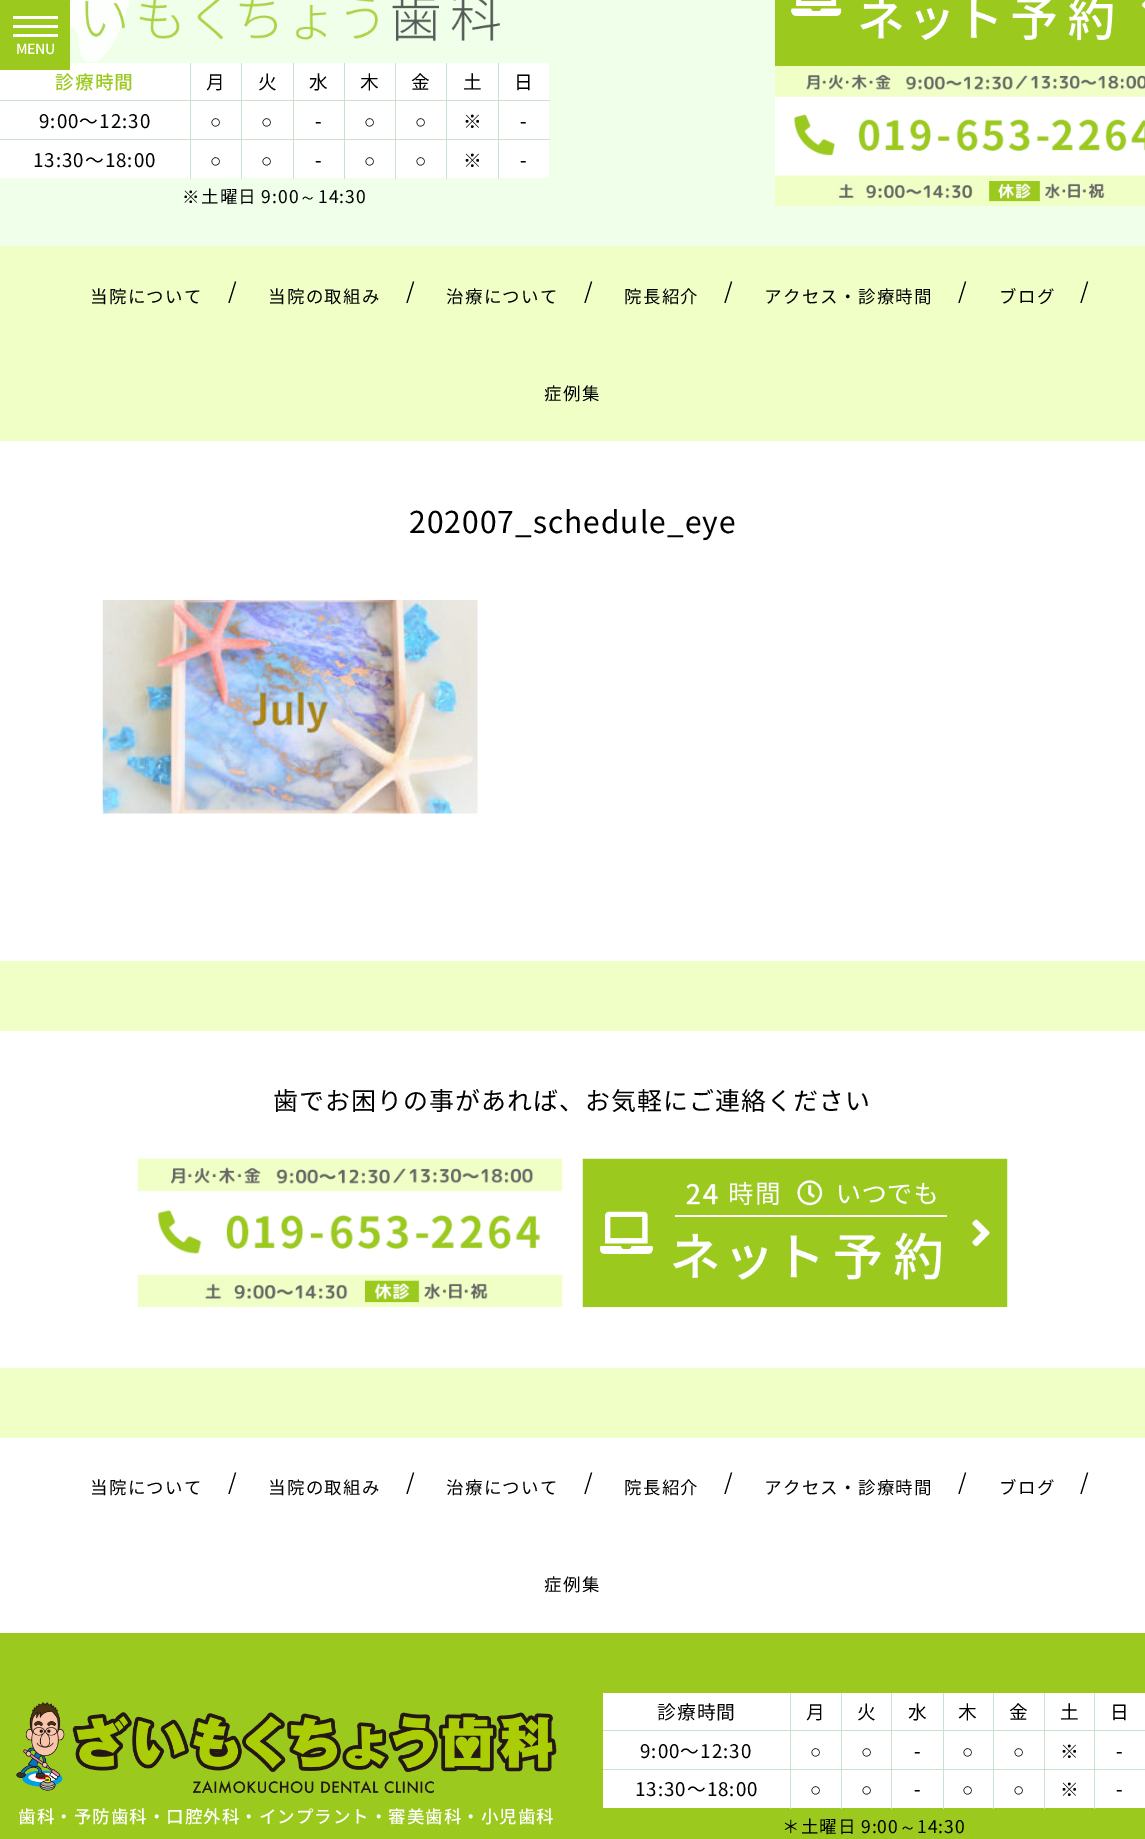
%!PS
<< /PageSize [1145 1839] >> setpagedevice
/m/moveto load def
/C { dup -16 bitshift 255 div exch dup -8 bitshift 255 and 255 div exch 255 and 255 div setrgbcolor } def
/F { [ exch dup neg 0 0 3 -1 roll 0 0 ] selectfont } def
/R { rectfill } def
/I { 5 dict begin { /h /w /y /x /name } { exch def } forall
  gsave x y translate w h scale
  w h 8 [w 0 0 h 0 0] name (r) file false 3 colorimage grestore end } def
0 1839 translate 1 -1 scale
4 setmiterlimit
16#FFFFFF C
0 0 1145 1839 R
16#F0FFEA C
0 0 1145 246 R
16#FFFFFF C
0 63 190 37 R
16#9BC91E C
0 0 70 70 R
16#FFFFFF C
13 16 45 3 R
13 25 45 3 R
13 34 45 3 R
/NotoSansJP-Medium 14 F
16 54 m -.5 0 (MENU) ashow
/NotoSansJP-Regular 30 F
16#000000 C
409 533 m 1 0 (202007_schedule_eye) ashow
(1.rgb) 102 599 376 215 I
(2.rgb) 70 0 430 63 I
16#CBE2CE C
0 100 550 1 R
/NotoSansJP-Medium 18.75 F
16#9BC91E C
55 89 m 1 0 (診療時間) ashow
16#FFFFFF C
191 63 102 37 R
/NotoSansJP-Regular 18.75 F
16#000000 C
206 89 m 1 0 (月) ashow
258 89 m 1 0 (火) ashow
16#FFFFFF C
294 63 50 37 R
16#000000 C
309 89 m 1 0 (水) ashow
16#FFFFFF C
345 63 50 37 R
16#000000 C
360 89 m 1 0 (木) ashow
16#FFFFFF C
396 63 102 37 R
16#000000 C
411 89 m 1 0 (金) ashow
463 89 m 1 0 (土) ashow
16#FFFFFF C
499 63 50 37 R
16#000000 C
514 89 m 1 0 (日) ashow
16#CBE2CE C
0 139 550 1 R
16#FFFFFF C
0 101 190 38 R
16#000000 C
39 128 m 1 0 (9:00〜12:30) ashow
16#FFFFFF C
191 101 102 38 R
/LiberationSans-Regular 18.75 F
16#000000 C
210 128 m 1 0 (○) ashow
261 128 m 1 0 (○) ashow
16#FFFFFF C
294 101 50 38 R
/NotoSansJP-Regular 18.75 F
16#000000 C
315 128 m 1 0 (-) ashow
16#FFFFFF C
345 101 50 38 R
/LiberationSans-Regular 18.75 F
16#000000 C
364 128 m 1 0 (○) ashow
16#FFFFFF C
396 101 102 38 R
16#000000 C
415 128 m 1 0 (○) ashow
/WenQuanYiZenHei-Medium 18.75 F
463 128 m 1 0 (※) ashow
16#FFFFFF C
499 101 50 38 R
/NotoSansJP-Regular 18.75 F
16#000000 C
520 128 m 1 0 (-) ashow
16#FFFFFF C
0 140 190 38 R
16#000000 C
33 167 m 1 0 (13:30〜18:00) ashow
16#FFFFFF C
191 140 102 38 R
16#CBE2CE C
190 63 1 116 R
/LiberationSans-Regular 18.75 F
16#000000 C
210 167 m 1 0 (○) ashow
16#CBE2CE C
241 63 1 116 R
16#000000 C
261 167 m 1 0 (○) ashow
16#FFFFFF C
294 140 50 38 R
16#CBE2CE C
293 63 1 116 R
/NotoSansJP-Regular 18.75 F
16#000000 C
315 167 m 1 0 (-) ashow
16#FFFFFF C
345 140 50 38 R
16#CBE2CE C
344 63 1 116 R
/LiberationSans-Regular 18.75 F
16#000000 C
364 167 m 1 0 (○) ashow
16#FFFFFF C
396 140 102 38 R
16#CBE2CE C
395 63 1 116 R
16#000000 C
415 167 m 1 0 (○) ashow
16#CBE2CE C
446 63 1 116 R
/WenQuanYiZenHei-Medium 18.75 F
16#000000 C
463 167 m 1 0 (※) ashow
16#FFFFFF C
499 140 50 38 R
16#CBE2CE C
498 63 1 116 R
/NotoSansJP-Regular 18.75 F
16#000000 C
520 167 m 1 0 (-) ashow
/WenQuanYiZenHei-Medium 17.5 F
182 203 m 1 0 (※) ashow
/NotoSansJP-Regular 17.5 F
201 203 m 1 0 (土曜日 9:00) ashow
/WenQuanYiZenHei-Medium 17.5 F
299 203 m 1 0 (～) ashow
/NotoSansJP-Regular 17.5 F
318 203 m 1 0 (14:30) ashow
(3.rgb) 775 0 370 66 I
(4.rgb) 775 66 370 140 I
16#EFFFC5 C
0 246 1145 195 R
16#000000 C
90 303 m 1.25 0 (当院について) ashow
/NotoSansJP-Regular 22 F
228 299 m 1 0 (/) ashow
/NotoSansJP-Regular 17.5 F
268 303 m 1.25 0 (当院の取組み) ashow
/NotoSansJP-Regular 22 F
406 299 m 1 0 (/) ashow
/NotoSansJP-Regular 17.5 F
446 303 m 1.25 0 (治療について) ashow
/NotoSansJP-Regular 22 F
584 299 m 1 0 (/) ashow
/NotoSansJP-Regular 17.5 F
624 303 m 1.25 0 (院長紹介) ashow
/NotoSansJP-Regular 22 F
724 299 m 1 0 (/) ashow
/NotoSansJP-Regular 17.5 F
764 303 m 1.25 0 (アクセス・診療時間) ashow
/NotoSansJP-Regular 22 F
958 299 m 1 0 (/) ashow
/NotoSansJP-Regular 17.5 F
999 303 m 1.25 0 (ブログ) ashow
/NotoSansJP-Regular 22 F
1080 299 m 1 0 (/) ashow
/NotoSansJP-Regular 17.5 F
544 400 m 1.25 0 (症例集) ashow
16#EFFFC5 C
0 961 1145 477 R
16#FFFFFF C
0 1031 1145 337 R
/NotoSansJP-Regular 25 F
16#000000 C
273 1110 m 1 0 (歯でお困りの事があれば、お気軽にご連絡ください) ashow
(5.rgb) 137 1158 426 149 I
(6.rgb) 582 1158 426 150 I
16#9BC91E C
0 1633 1145 206 R
/NotoSansJP-Regular 17.5 F
16#000000 C
90 1494 m 1.25 0 (当院について) ashow
/NotoSansJP-Regular 22 F
228 1490 m 1 0 (/) ashow
/NotoSansJP-Regular 17.5 F
268 1494 m 1.25 0 (当院の取組み) ashow
/NotoSansJP-Regular 22 F
406 1490 m 1 0 (/) ashow
/NotoSansJP-Regular 17.5 F
446 1494 m 1.25 0 (治療について) ashow
/NotoSansJP-Regular 22 F
584 1490 m 1 0 (/) ashow
/NotoSansJP-Regular 17.5 F
624 1494 m 1.25 0 (院長紹介) ashow
/NotoSansJP-Regular 22 F
724 1490 m 1 0 (/) ashow
/NotoSansJP-Regular 17.5 F
764 1494 m 1.25 0 (アクセス・診療時間) ashow
/NotoSansJP-Regular 22 F
958 1490 m 1 0 (/) ashow
/NotoSansJP-Regular 17.5 F
999 1494 m 1.25 0 (ブログ) ashow
/NotoSansJP-Regular 22 F
1080 1490 m 1 0 (/) ashow
/NotoSansJP-Regular 17.5 F
544 1591 m 1.25 0 (症例集) ashow
(7.rgb) 16 1702 541 92 I
/NotoSansJP-Medium 17.5 F
16#FFFFFF C
18 1823 m 1 0 (歯科・予防歯科・口腔外科・インプラント・審美歯科・小児歯科) ashow
16#CBE2CE C
603 1730 542 1 R
16#FFFFFF C
603 1693 187 37 R
/NotoSansJP-Regular 18.75 F
16#000000 C
657 1719 m 1 0 (診療時間) ashow
16#FFFFFF C
791 1693 50 37 R
16#000000 C
806 1719 m 1 0 (月) ashow
16#FFFFFF C
842 1693 101 37 R
16#000000 C
857 1719 m 1 0 (火) ashow
908 1719 m 1 0 (水) ashow
16#FFFFFF C
944 1693 49 37 R
16#000000 C
958 1719 m 1 0 (木) ashow
16#FFFFFF C
994 1693 50 37 R
16#000000 C
1009 1719 m 1 0 (金) ashow
16#FFFFFF C
1045 1693 49 37 R
16#000000 C
1060 1719 m 1 0 (土) ashow
16#FFFFFF C
1095 1693 50 37 R
16#000000 C
1110 1719 m 1 0 (日) ashow
16#CBE2CE C
603 1769 542 1 R
16#FFFFFF C
603 1731 187 38 R
16#000000 C
640 1758 m 1 0 (9:00〜12:30) ashow
16#FFFFFF C
791 1731 50 38 R
/LiberationSans-Regular 18.75 F
16#000000 C
810 1758 m 1 0 (○) ashow
16#FFFFFF C
842 1731 101 38 R
16#000000 C
861 1758 m 1 0 (○) ashow
/NotoSansJP-Regular 18.75 F
914 1758 m 1 0 (-) ashow
16#FFFFFF C
944 1731 49 38 R
/LiberationSans-Regular 18.75 F
16#000000 C
962 1758 m 1 0 (○) ashow
16#FFFFFF C
994 1731 50 38 R
16#000000 C
1013 1758 m 1 0 (○) ashow
16#FFFFFF C
1045 1731 49 38 R
/WenQuanYiZenHei-Medium 18.75 F
16#000000 C
1060 1758 m 1 0 (※) ashow
16#FFFFFF C
1095 1731 50 38 R
/NotoSansJP-Regular 18.75 F
16#000000 C
1116 1758 m 1 0 (-) ashow
16#FFFFFF C
603 1770 187 38 R
16#000000 C
635 1796 m 1 0 (13:30〜18:00) ashow
16#FFFFFF C
791 1770 50 38 R
16#CBE2CE C
790 1693 1 116 R
/LiberationSans-Regular 18.75 F
16#000000 C
810 1796 m 1 0 (○) ashow
16#FFFFFF C
842 1770 101 38 R
16#CBE2CE C
841 1693 1 116 R
16#000000 C
861 1796 m 1 0 (○) ashow
16#CBE2CE C
891 1693 1 116 R
/NotoSansJP-Regular 18.75 F
16#000000 C
914 1796 m 1 0 (-) ashow
16#FFFFFF C
944 1770 49 38 R
16#CBE2CE C
943 1693 1 116 R
/LiberationSans-Regular 18.75 F
16#000000 C
962 1796 m 1 0 (○) ashow
16#FFFFFF C
994 1770 50 38 R
16#CBE2CE C
993 1693 1 116 R
16#000000 C
1013 1796 m 1 0 (○) ashow
16#FFFFFF C
1045 1770 49 38 R
16#CBE2CE C
1044 1693 1 116 R
/WenQuanYiZenHei-Medium 18.75 F
16#000000 C
1060 1796 m 1 0 (※) ashow
16#FFFFFF C
1095 1770 50 38 R
16#CBE2CE C
1094 1693 1 116 R
/NotoSansJP-Regular 18.75 F
16#000000 C
1116 1796 m 1 0 (-) ashow
/NotoSansJP-Regular 17.5 F
782 1833 m 1 0 (＊土曜日 9:00) ashow
/WenQuanYiZenHei-Medium 17.5 F
899 1833 m 1 0 (～) ashow
/NotoSansJP-Regular 17.5 F
917 1833 m 1 0 (14:30) ashow
showpage
